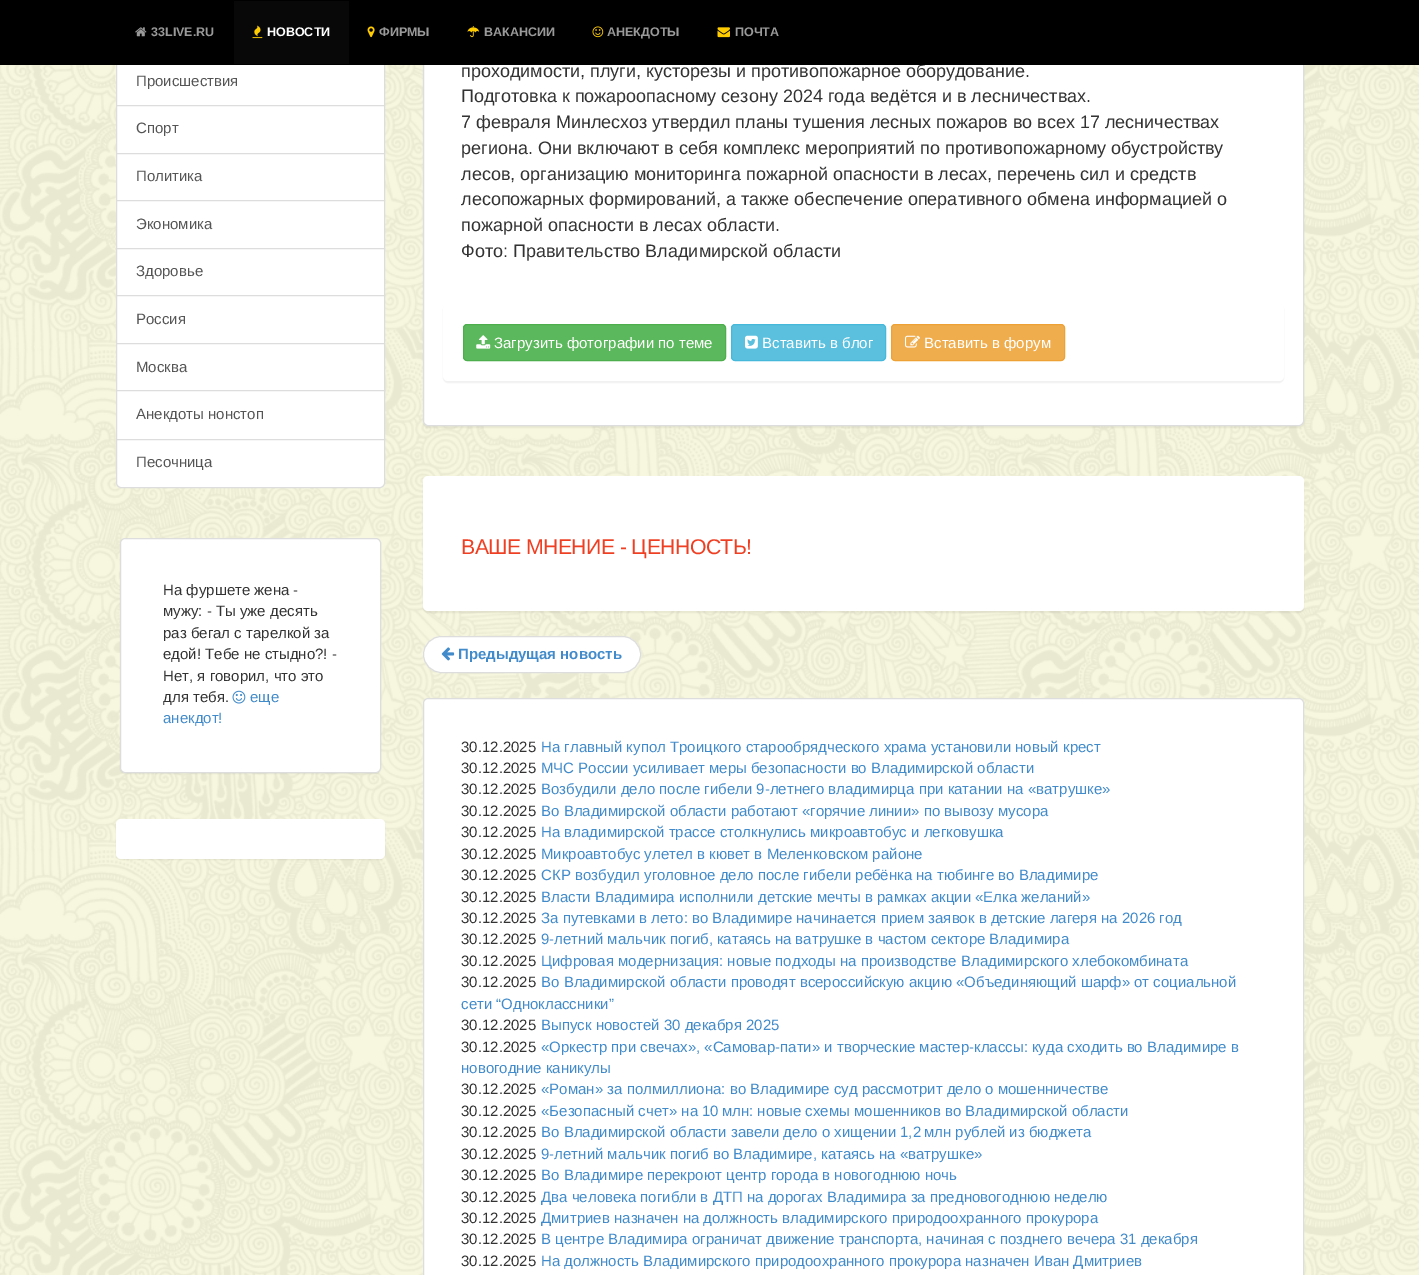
%!PS
<< /PageSize [1419 1275] /PageUsesTransparency true >> setpagedevice
/m/moveto load def
/l/rlineto load def
/c/rcurveto load def
/z/closepath load def
/f/fill load def
/s/stroke load def
/q/gsave load def
/Q_/grestore load def
/C { dup -16 bitshift 255 div exch dup -8 bitshift 255 and 255 div exch 255 and 255 div setrgbcolor } def
/F { [ exch dup neg 0 0 3 -1 roll 0 0 ] selectfont } def
/T { moveto show } def
/R { rectfill } def
/A { dup .setfillconstantalpha .setstrokeconstantalpha } def
/Q { 5 dict begin { /r /h /w /y /x } { exch def } forall
  x r add y moveto x w add y 2 copy h add r arct x w add y h add x 1 index r arct
  x y h add x y r arct x y 2 copy exch w add exch r arct closepath end } def
/S { 12 dict begin { /a /b /q /h /w /y /x } { exch def } forall gsave /was 0 def
  9 -2 -9 { dup b mul 4 div /e exch def 1 sub .425 mul 2.718 exch exp 1 add a .99 .min exch div /now exch def
    1 1 now sub 1 was sub div sub A /was now def
    w h .min e 2 mul add 0 gt { x e sub y e sub w e 2 mul add h e 2 mul add
      q e add b .6 mul add w h .min 2 div e add .min 0 .max Q fill } if } for grestore end } def
/I { 5 dict begin { /h /w /y /x /name } { exch def } forall
  gsave x y translate w h scale
  w h 8 [w 0 0 h 0 0] name (r) file false 3 colorimage grestore end } def
0 .pushpdf14devicefilter
0 1275 translate 1 -1 scale
4 setmiterlimit
16#FFFFFF C
0 0 1419 1275 R
(1.rgb) 0 65 1419 1210 I
117 65 267 40 R
16#DDDDDD C
116.5 58.5 268 47 rectstroke
16#000000 C
423 -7 881 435 5 .5 .05 S
16#FFFFFF C
423.5 -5.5 880 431 4.5 Q q f Q_
16#DDDDDD C
s
/LiberationSans-Regular 18 F
16#333333 C
(проходимости, плуги, кусторезы и противопожарное оборудование.) 461 77 T
16#000000 C
0 0 1419 65 R
(2.rgb) 135 27 12 10 I
/LiberationSans-Bold 12.5 F
16#999999 C
(33LIVE.RU) 151 36 T
16#080808 C
234 1 115 63 R
(3.rgb) 252 25 11 14 I
16#FFFFFF C
(НОВОСТИ) 267 36 T
(4.rgb) 367 26 8 12 I
16#999999 C
(ФИРМЫ) 379 36 T
(5.rgb) 467 26 13 12 I
(ВАКАНСИИ) 484 36 T
(6.rgb) 592 26 12 12 I
(АНЕКДОТЫ) 607 36 T
(7.rgb) 717 27 13 11 I
(ПОЧТА) 735 36 T
/LiberationSans-Regular 15 F
16#555555 C
(Происшествия) 136 86 T
16#FFFFFF C
116.5 105.5 m 268 0 l 0 48 l -268 0 l z q f Q_
16#DDDDDD C
s
16#555555 C
(Спорт) 136 133 T
16#FFFFFF C
116.5 153.5 m 268 0 l 0 47 l -268 0 l z q f Q_
16#DDDDDD C
s
16#555555 C
(Политика) 136 181 T
16#FFFFFF C
116.5 200.5 m 268 0 l 0 48 l -268 0 l z q f Q_
16#DDDDDD C
s
16#555555 C
(Экономика) 136 229 T
16#FFFFFF C
116.5 248.5 m 268 0 l 0 47 l -268 0 l z q f Q_
16#DDDDDD C
s
16#555555 C
(Здоровье) 136 276 T
16#FFFFFF C
116.5 295.5 m 268 0 l 0 48 l -268 0 l z q f Q_
16#DDDDDD C
s
16#555555 C
(Россия) 136 324 T
16#FFFFFF C
116.5 343.5 m 268 0 l 0 47 l -268 0 l z q f Q_
16#DDDDDD C
s
16#555555 C
(Москва) 136 372 T
16#FFFFFF C
116.5 390.5 m 268 0 l 0 49 l -268 0 l z q f Q_
16#DDDDDD C
s
16#555555 C
(Анекдоты нонстоп) 136 419 T
16#FFFFFF C
116.5 439.5 m 268 0 l 0 43.5 l 0 2.5 -2 4.5 -4.5 4.5 c -259 0 l -2.5 0 -4.5 -2 -4.5 -4.5 c z q f Q_
16#DDDDDD C
s
16#555555 C
(Песочница) 136 467 T
16#000000 C
120 539 261 235 5 .5 .05 S
16#FFFFFF C
120.5 538.5 260 234 4.5 Q q f Q_
16#DDDDDD C
s
16#333333 C
(На фуршете жена -) 163 595 T
(мужу: - Ты уже десять) 163 616 T
(раз бегал с тарелкой за) 163 638 T
(едой! Тебе не стыдно?! -) 163 659 T
(Нет, я говорил, что это) 163 681 T
(для тебя.) 163 702 T
(8.rgb) 232 690 14 14 I
16#428BCA C
(еще) 250 702 T
(анекдот!) 163 723 T
16#000000 C
116 820 269 40 5 .5 .05 S
16#FFFFFF C
116 819 269 40 5 Q f
/LiberationSans-Regular 18 F
16#333333 C
(Подготовка к пожароопасному сезону 2024 года ведётся и в лесничествах.) 461 102 T
(7 февраля Минлесхоз утвердил планы тушения лесных пожаров во всех 17 лесничествах) 461 128 T
(региона. Они включают в себя комплекс мероприятий по противопожарному обустройству) 461 154 T
(лесов, организацию мониторинга пожарной опасности в лесах, перечень сил и средств) 461 180 T
(лесопожарных формирований, а также обеспечение оперативного обмена информацией о) 461 205 T
(пожарной опасности в лесах области.) 461 231 T
(Фото: Правительство Владимирской области) 461 257 T
16#000000 C
443 305 841 78 5 .5 .05 S
16#FFFFFF C
443 304 841 77 5 Q f
16#5CB85C C
463.5 324.5 262 36 3.5 Q q f Q_
16#4CAE4C C
s
(9.rgb) 476 335 15 14 I
/LiberationSans-Regular 15 F
16#FFFFFF C
(Загрузить фотографии по теме) 494 348 T
16#5BC0DE C
731.5 324.5 154 36 3.5 Q q f Q_
16#46B8DA C
s
(10.rgb) 745 335 13 14 I
16#FFFFFF C
(Вставить в блог) 762 348 T
16#F0AD4E C
891.5 324.5 173 36 3.5 Q q f Q_
16#EEA236 C
s
(11.rgb) 905 335 15 13 I
16#FFFFFF C
(Вставить в форум) 924 348 T
16#000000 C
423 478 881 135 5 .5 .05 S
16#FFFFFF C
423 476 881 135 5 Q f
/LiberationSans-Regular 21.25 F
16#EF3F23 C
461 554 m -.6 0 (ВАШЕ МНЕНИЕ - ЦЕННОСТЬ!) ashow
16#FFFFFF C
423.5 636.5 217 36 18 Q q f Q_
16#DDDDDD C
s
(12.rgb) 441 647 14 14 I
/LiberationSans-Bold 15 F
16#428BCA C
(Предыдущая новость) 458 659 T
16#FFFFFF C
423.5 698.5 880 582 4.5 Q q f Q_
16#DDDDDD C
s
/LiberationSans-Regular 15 F
16#333333 C
(30.12.2025) 461 752 T
16#428BCA C
(На главный купол Троицкого старообрядческого храма установили новый крест) 541 752 T
16#333333 C
(30.12.2025) 461 773 T
16#428BCA C
(МЧС России усиливает меры безопасности во Владимирской области) 541 773 T
16#333333 C
(30.12.2025) 461 794 T
16#428BCA C
(Возбудили дело после гибели 9-летнего владимирца при катании на «ватрушке») 541 794 T
16#333333 C
(30.12.2025) 461 816 T
16#428BCA C
(Во Владимирской области работают «горячие линии» по вывозу мусора) 541 816 T
16#333333 C
(30.12.2025) 461 837 T
16#428BCA C
(На владимирской трассе столкнулись микроавтобус и легковушка) 541 837 T
16#333333 C
(30.12.2025) 461 859 T
16#428BCA C
(Микроавтобус улетел в кювет в Меленковском районе) 541 859 T
16#333333 C
(30.12.2025) 461 880 T
16#428BCA C
(СКР возбудил уголовное дело после гибели ребёнка на тюбинге во Владимире) 541 880 T
16#333333 C
(30.12.2025) 461 902 T
16#428BCA C
(Власти Владимира исполнили детские мечты в рамках акции «Елка желаний») 541 902 T
16#333333 C
(30.12.2025) 461 923 T
16#428BCA C
(За путевками в лето: во Владимире начинается прием заявок в детские лагеря на 2026 год) 541 923 T
16#333333 C
(30.12.2025) 461 944 T
16#428BCA C
(9-летний мальчик погиб, катаясь на ватрушке в частом секторе Владимира) 541 944 T
16#333333 C
(30.12.2025) 461 966 T
16#428BCA C
(Цифровая модернизация: новые подходы на производстве Владимирского хлебокомбината) 541 966 T
16#333333 C
(30.12.2025) 461 987 T
16#428BCA C
(Во Владимирской области проводят всероссийскую акцию «Объединяющий шарф» от социальной) 541 987 T
(сети “Одноклассники”) 461 1009 T
16#333333 C
(30.12.2025) 461 1030 T
16#428BCA C
(Выпуск новостей 30 декабря 2025) 541 1030 T
16#333333 C
(30.12.2025) 461 1052 T
16#428BCA C
(«Оркестр при свечах», «Самовар-пати» и творческие мастер-классы: куда сходить во Владимире в) 541 1052 T
(новогодние каникулы) 461 1073 T
16#333333 C
(30.12.2025) 461 1094 T
16#428BCA C
(«Роман» за полмиллиона: во Владимире суд рассмотрит дело о мошенничестве) 541 1094 T
16#333333 C
(30.12.2025) 461 1116 T
16#428BCA C
(«Безопасный счет» на 10 млн: новые схемы мошенников во Владимирской области) 541 1116 T
16#333333 C
(30.12.2025) 461 1137 T
16#428BCA C
(Во Владимирской области завели дело о хищении 1,2 млн рублей из бюджета) 541 1137 T
16#333333 C
(30.12.2025) 461 1159 T
16#428BCA C
(9-летний мальчик погиб во Владимире, катаясь на «ватрушке») 541 1159 T
16#333333 C
(30.12.2025) 461 1180 T
16#428BCA C
(Во Владимире перекроют центр города в новогоднюю ночь) 541 1180 T
16#333333 C
(30.12.2025) 461 1202 T
16#428BCA C
(Два человека погибли в ДТП на дорогах Владимира за предновогоднюю неделю) 541 1202 T
16#333333 C
(30.12.2025) 461 1223 T
16#428BCA C
(Дмитриев назначен на должность владимирского природоохранного прокурора) 541 1223 T
16#333333 C
(30.12.2025) 461 1244 T
16#428BCA C
(В центре Владимира ограничат движение транспорта, начиная с позднего вечера 31 декабря) 541 1244 T
16#333333 C
(30.12.2025) 461 1266 T
16#428BCA C
(На должность Владимирского природоохранного прокурора назначен Иван Дмитриев) 541 1266 T
.poppdf14devicefilter showpage
